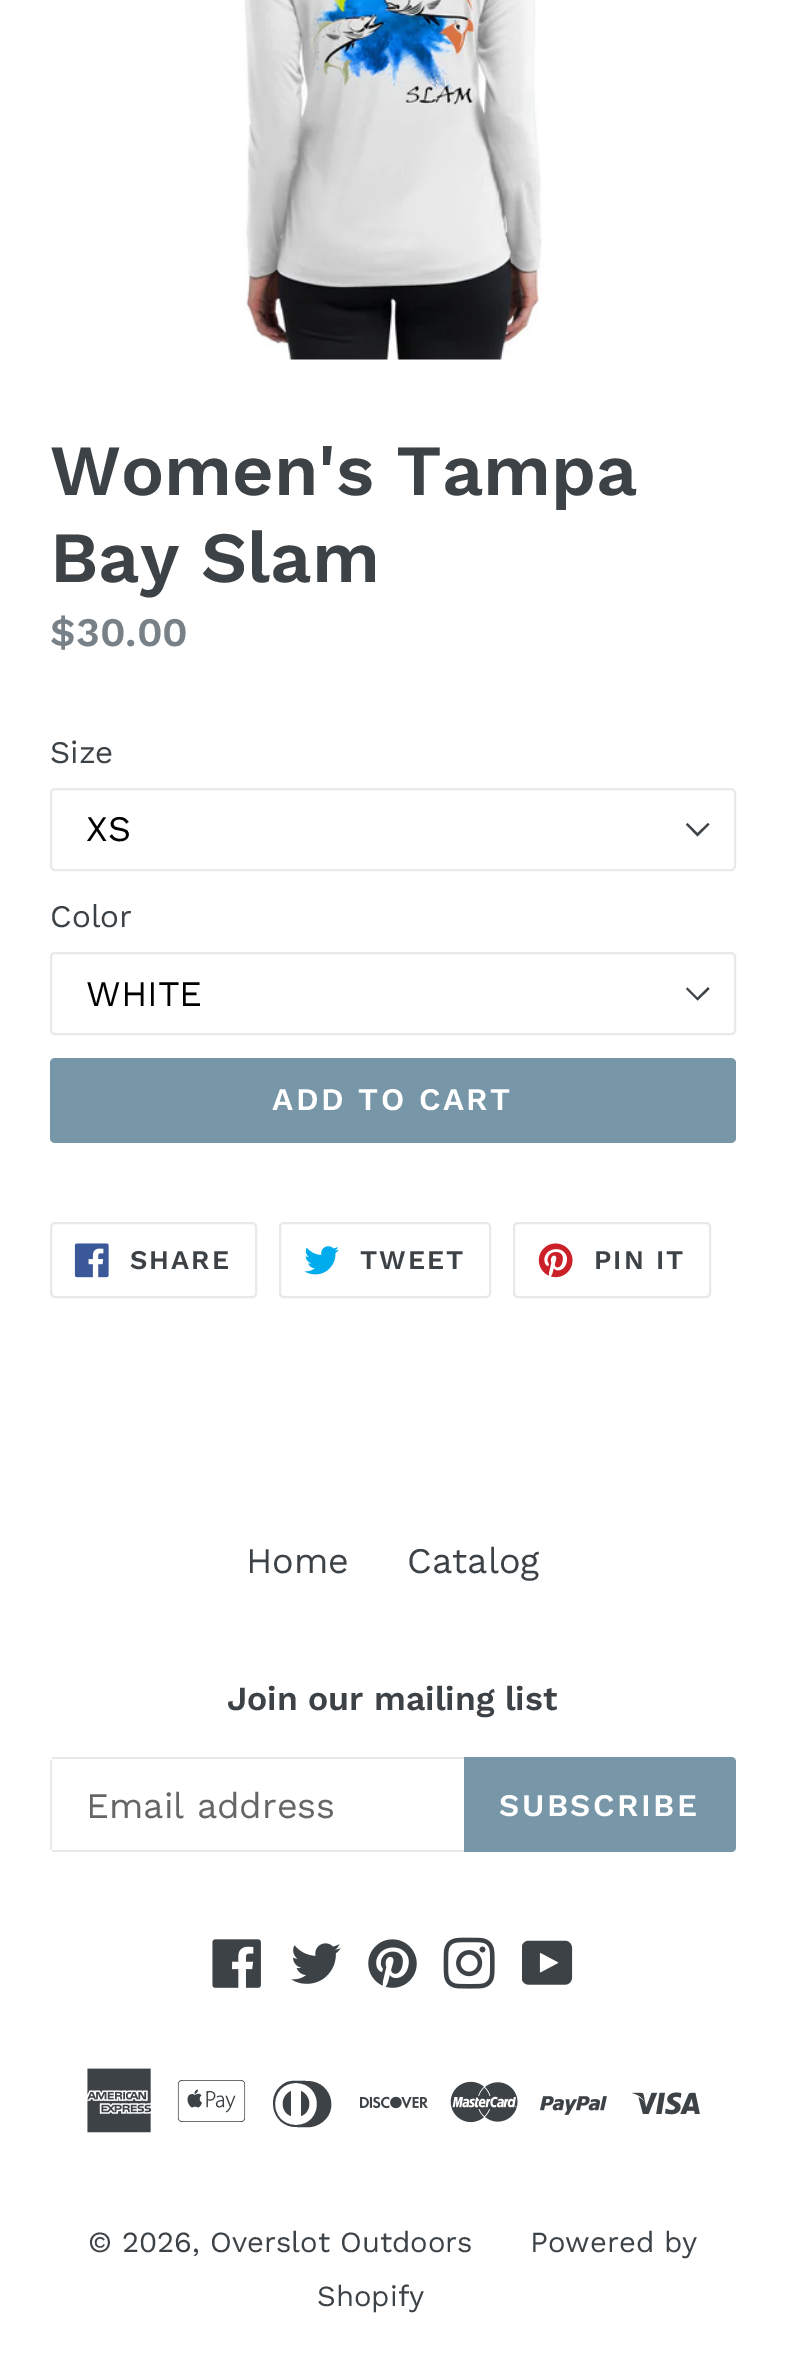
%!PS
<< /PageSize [785 2366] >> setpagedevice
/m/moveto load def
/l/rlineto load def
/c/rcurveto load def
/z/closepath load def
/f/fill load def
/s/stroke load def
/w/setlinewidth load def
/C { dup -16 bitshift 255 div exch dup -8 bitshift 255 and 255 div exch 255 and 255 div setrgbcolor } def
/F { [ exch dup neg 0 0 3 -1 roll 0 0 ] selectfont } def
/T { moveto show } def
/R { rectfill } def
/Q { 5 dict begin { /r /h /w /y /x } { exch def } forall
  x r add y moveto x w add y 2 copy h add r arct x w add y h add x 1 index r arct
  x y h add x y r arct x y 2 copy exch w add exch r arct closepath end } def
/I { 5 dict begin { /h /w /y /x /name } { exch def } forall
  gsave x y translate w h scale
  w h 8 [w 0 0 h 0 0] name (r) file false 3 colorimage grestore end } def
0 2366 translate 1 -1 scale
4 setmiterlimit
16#FFFFFF C
0 0 785 2366 R
(1.rgb) 243 0 299 360 I
/WorkSans-SemiBold 72 F
16#3D4246 C
(Women's Tampa) 50 495 T
(Bay Slam) 50 582 T
/WorkSans-SemiBold 40.5 F
16#788188 C
($30.00) 50 646 T
/WorkSans-Regular 31.5 F
16#3D4246 C
(Size) 50 763 T
697.5 836.5 m -11.5 -12 l 1.5 -1.5 l 10 10 l 10.5 -10 l 1.5 1.5 l z f
16#E8E9EB C
2 w
51 789 684 81 4 Q s
/WorkSans-Regular 36 F
16#000000 C
(XS) 86 841 T
/WorkSans-Regular 31.5 F
16#3D4246 C
(Color) 50 927 T
697.5 1000.5 m -11.5 -11.5 l 1.5 -1.5 l 10 10 l 10.5 -10.5 l 1.5 2 l z f
16#E8E9EB C
51 953 684 81 4 Q s
/WorkSans-Regular 36 F
16#000000 C
(WHITE) 86 1006 T
16#7796A8 C
50 1058 686 85 5 Q f
/WorkSans-SemiBold 31.5 F
16#FFFFFF C
272 1110 m 2.5 0 (ADD TO CART) ashow
16#E8E9EB C
51 1223 205 74 4 Q s
(2.rgb) 74 1243 35 35 I
/WorkSans-SemiBold 27 F
16#3D4246 C
130 1269 m 2 0 (SHARE) ashow
16#E8E9EB C
280 1223 210 74 4 Q s
(3.rgb) 304 1246 35 29 I
16#3D4246 C
360 1269 m 2 0 (TWEET) ashow
16#E8E9EB C
514 1223 196 74 4 Q s
(4.rgb) 538 1243 35 35 I
16#3D4246 C
594 1269 m 2 0 (PIN IT) ashow
/WorkSans-Regular 36 F
(Home) 246 1573 T
(Catalog) 407 1573 T
/WorkSans-SemiBold 33.75 F
(Join our mailing list) 227 1710 T
16#E8E9EB C
52 1757 412 2 R
52 1850 412 2 R
50 1760 2 90 R
/WorkSans-Regular 36 F
16#666666 C
(Email address) 86 1818 T
16#7796A8 C
464 1757 m 267 0 l 3 0 5 2 5 5 c 0 85 l 0 3 -2 5 -5 5 c -267 0 l z f
/WorkSans-SemiBold 31.5 F
16#FFFFFF C
499 1816 m 2.5 0 (SUBSCRIBE) ashow
(5.rgb) 212 1939 49 49 I
(6.rgb) 291 1943 50 41 I
(7.rgb) 368 1939 49 49 I
(8.rgb) 443 1937 52 52 I
(9.rgb) 522 1940 51 45 I
(10.rgb) 87 2068 64 65 I
(11.rgb) 177 2080 69 42 I
16#3D4246 C
307 2081 m 27 0 34 36 8 45 c -6 2 -13 1 -19 1 c -25 0 -32 -35 -9 -45 c 6 -2 14 -1 20 -1 c z 296 2125 m 28 0 28 -42 0 -42 c -28 0 -28 42 0 42 c z 291 2116 m -11 -4 -11 -20 0 -25 c z 301 2091 m 11 5 11 21 0 25 c z f
(12.rgb) 360 2096 68 13 I
(13.rgb) 450 2081 68 42 I
(14.rgb) 540 2096 67 19 I
(15.rgb) 632 2092 68 23 I
/WorkSans-Regular 29.25 F
(© 2026, Overslot Outdoors) 88 2252 T
(Powered by) 530 2252 T
(Shopify) 317 2306 T
showpage
